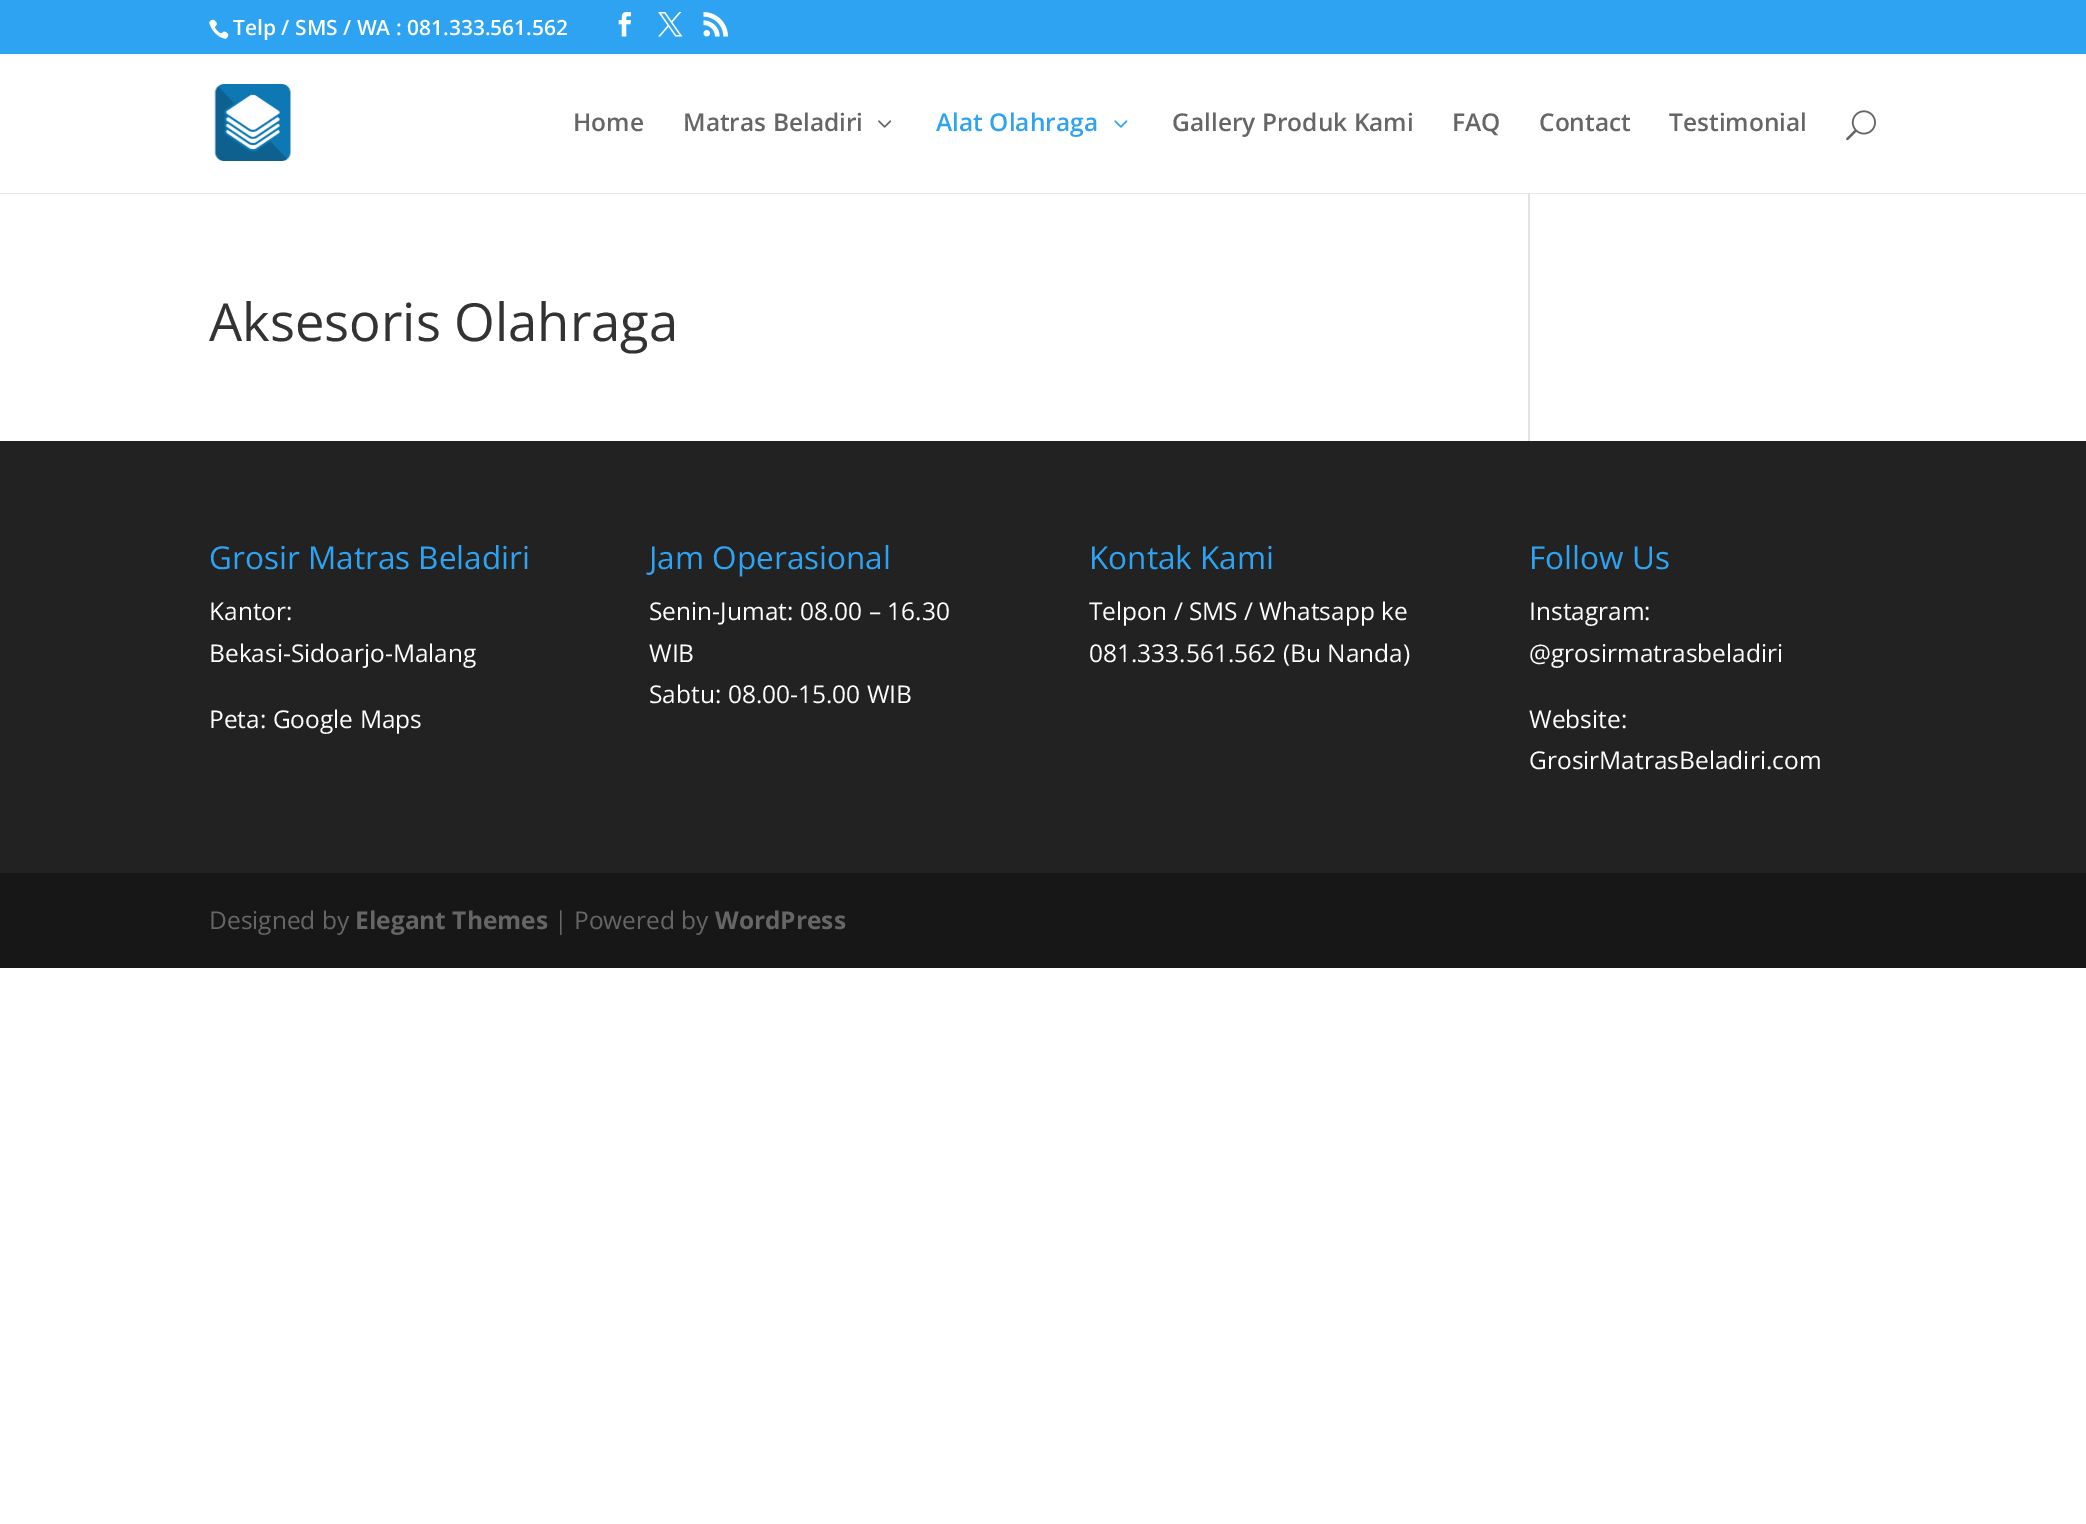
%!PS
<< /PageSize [2086 1524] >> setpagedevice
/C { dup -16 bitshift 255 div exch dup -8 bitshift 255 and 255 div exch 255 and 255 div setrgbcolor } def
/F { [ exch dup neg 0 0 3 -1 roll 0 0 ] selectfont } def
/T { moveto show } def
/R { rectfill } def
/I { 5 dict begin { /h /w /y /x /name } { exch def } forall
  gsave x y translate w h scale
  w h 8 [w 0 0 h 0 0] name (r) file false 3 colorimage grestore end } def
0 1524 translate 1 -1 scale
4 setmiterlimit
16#FFFFFF C
0 0 2086 1524 R
16#2EA3F2 C
0 0 2086 54 R
(1.rgb) 209 19 20 20 I
/OpenSans-SemiBold 21 F
16#FFFFFF C
(Telp / SMS / WA : 081.333.561.562) 233 35 T
(2.rgb) 618 12 13 25 I
(3.rgb) 658 12 25 25 I
(4.rgb) 703 12 25 25 I
16#E6E6E6 C
0 193 2086 1 R
(5.rgb) 214 84 77 77 I
/OpenSans-SemiBold 24.5 F
16#666666 C
(Home) 573 131 T
(Matras Beladiri) 683 131 T
(6.rgb) 878 120 14 8 I
16#2EA3F2 C
(Alat Olahraga) 936 131 T
(7.rgb) 1114 120 14 8 I
16#666666 C
(Gallery Produk Kami) 1172 131 T
(FAQ) 1452 131 T
(Contact) 1539 131 T
(Testimonial) 1669 131 T
(8.rgb) 1846 110 30 31 I
/OpenSans-Regular 52.5 F
16#333333 C
(Aksesoris Olahraga) 209 341 T
16#E2E2E2 C
1528 194 2 247 R
16#222222 C
0 441 2086 432 R
/OpenSans-Regular 31.5 F
16#2EA3F2 C
(Grosir Matras Beladiri) 209 569 T
/OpenSans-Regular 24.5 F
16#FFFFFF C
(Kantor:) 209 620 T
(Bekasi-Sidoarjo-Malang) 209 662 T
(Peta: Google Maps) 209 728 T
/OpenSans-Regular 31.5 F
16#2EA3F2 C
(Jam Operasional) 649 569 T
/OpenSans-Regular 24.5 F
16#FFFFFF C
(Senin-Jumat: 08.00 – 16.30) 649 620 T
(WIB) 649 662 T
(Sabtu: 08.00-15.00 WIB) 649 703 T
/OpenSans-Regular 31.5 F
16#2EA3F2 C
(Kontak Kami) 1089 569 T
/OpenSans-Regular 24.5 F
16#FFFFFF C
(Telpon / SMS / Whatsapp ke) 1089 620 T
(081.333.561.562 \(Bu Nanda\)) 1089 662 T
/OpenSans-Regular 31.5 F
16#2EA3F2 C
(Follow Us) 1529 569 T
/OpenSans-Regular 24.5 F
16#FFFFFF C
(Instagram:) 1529 620 T
(@grosirmatrasbeladiri) 1529 662 T
(Website:) 1529 728 T
(GrosirMatrasBeladiri.com) 1529 769 T
16#171717 C
0 873 2086 95 R
16#666666 C
(Designed by) 209 929 T
/OpenSans-Bold 24.5 F
(Elegant Themes) 355 929 T
/OpenSans-Regular 24.5 F
(| Powered by) 554 929 T
/OpenSans-Bold 24.5 F
(WordPress) 715 929 T
showpage
